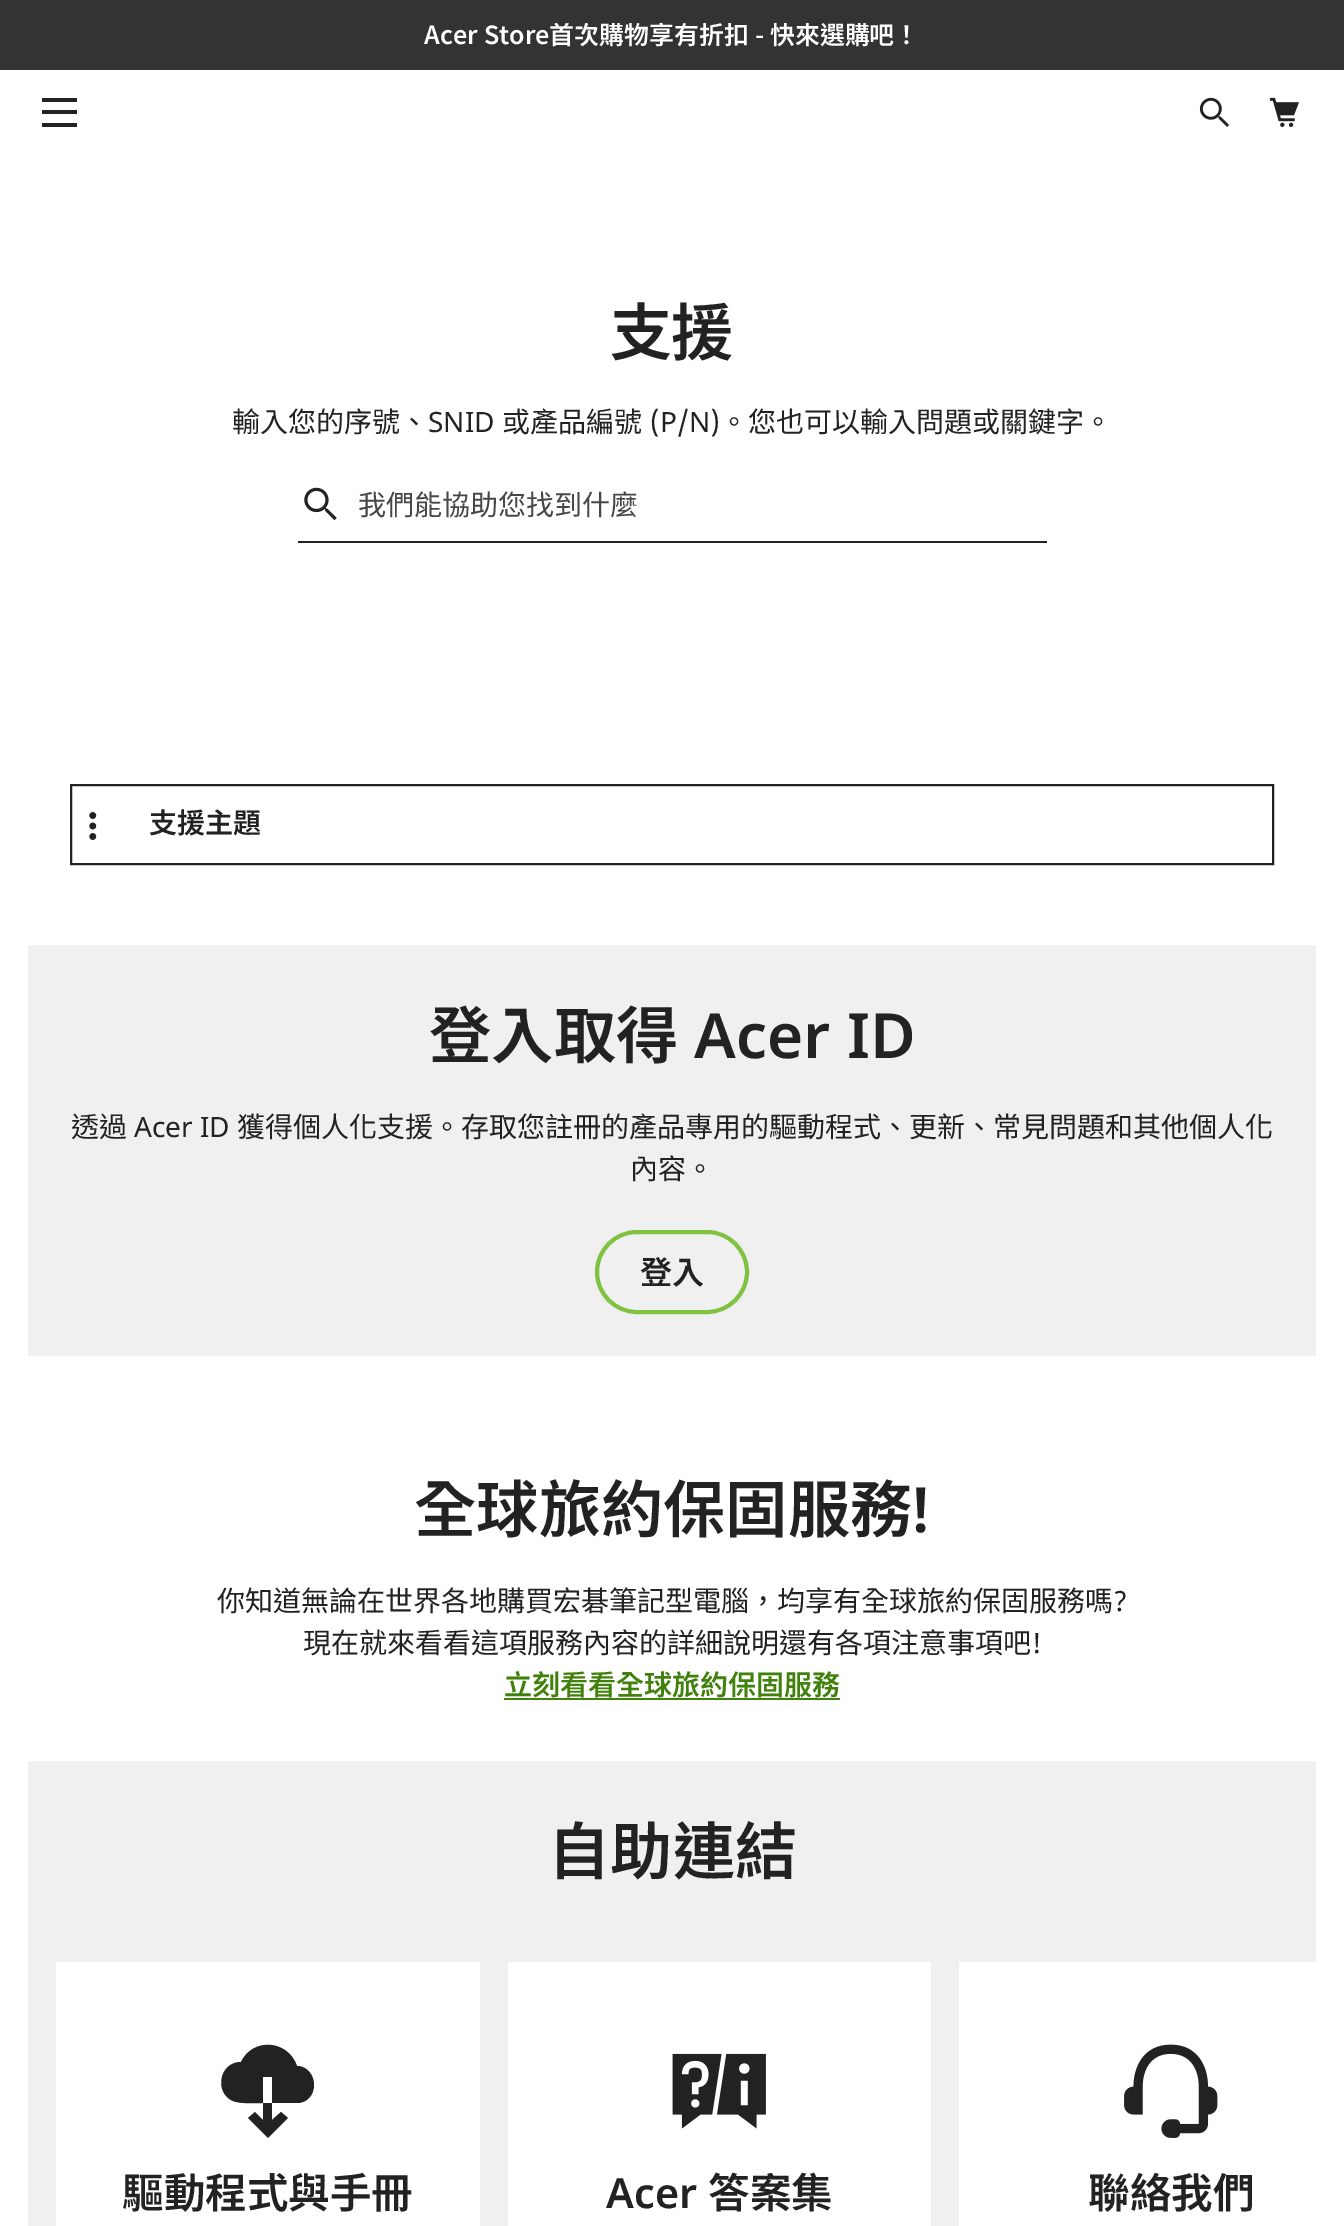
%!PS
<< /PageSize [1344 2226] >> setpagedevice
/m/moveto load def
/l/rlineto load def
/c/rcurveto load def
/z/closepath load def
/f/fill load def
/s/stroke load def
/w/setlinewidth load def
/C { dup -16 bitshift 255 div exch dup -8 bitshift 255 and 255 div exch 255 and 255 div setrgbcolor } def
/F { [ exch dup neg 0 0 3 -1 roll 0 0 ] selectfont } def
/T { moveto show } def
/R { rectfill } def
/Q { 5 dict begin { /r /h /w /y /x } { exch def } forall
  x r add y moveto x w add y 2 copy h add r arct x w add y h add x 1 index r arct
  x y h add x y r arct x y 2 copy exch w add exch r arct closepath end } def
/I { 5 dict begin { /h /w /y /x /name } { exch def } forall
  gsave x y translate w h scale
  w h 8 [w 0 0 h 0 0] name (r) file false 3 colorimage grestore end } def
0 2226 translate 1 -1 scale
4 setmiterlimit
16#FFFFFF C
0 0 1344 2226 R
16#333333 C
0 0 1344 70 R
/NotoSansTC-SemiBold 24.9 F
16#FFFFFF C
424 44 m .5 0 32 (Acer Store首次購物享有折扣 - 快來選購吧！) widthshow
16#222222 C
42 98 35 4 R
42 110 35 4 R
42 123 35 4 R
(1.rgb) 1199 97 30 30 I
(2.rgb) 1269 97 30 30 I
/NotoSansTC-SemiBold 62.25 F
610 355 m -1 0 (支援) ashow
/NotoSansTC-Regular 28 F
(輸入您的序號、) 232 432 T
/NotoSans-Regular 28 F
(SNID) 428 432 T
/NotoSansTC-Regular 28 F
(或產品編號) 502 432 T
/NotoSans-Regular 28 F
(\(P/N\)) 650 432 T
/NotoSansTC-Regular 28 F
(。您也可以輸入問題或關鍵字。) 720 432 T
298 541 749 2 R
(3.rgb) 304 487 33 34 I
16#474747 C
(我們能協助您找到什麼) 358 515 T
16#222222 C
2 w
71 785 1202 79 rectstroke
(4.rgb) 89 812 8 28 I
/NotoSansTC-SemiBold 28 F
(支援主題) 149 833 T
16#F0F0F0 C
28 945 1288 411 R
/NotoSansTC-SemiBold 62.25 F
16#222222 C
(登入取得) 429 1058 T
/NotoSans-SemiBold 62.25 F
(Acer ID) 694 1058 T
/NotoSansTC-Regular 28 F
(透過) 71 1137 T
/NotoSans-Regular 28 F
(Acer ID) 134 1137 T
/NotoSansTC-Regular 28 F
(獲得個人化支援。存取您註冊的產品專用的驅動程式、更新、常見問題和其他個人化) 237 1137 T
(內容。) 630 1179 T
16#80C343 C
4 w
597 1232 150 80 40 Q s
/NotoSansTC-SemiBold 32 F
16#222222 C
(登入) 640 1284 T
/NotoSansTC-SemiBold 62.25 F
(全球旅約保固服務) 414 1532 T
/NotoSans-SemiBold 62.25 F
(!) 912 1532 T
/NotoSansTC-Regular 28 F
(你知道無論在世界各地購買宏碁筆記型電腦，均享有全球旅約保固服務嗎) 217 1611 T
/NotoSans-Regular 28 F
(?) 1113 1611 T
/NotoSansTC-Regular 28 F
(現在就來看看這項服務內容的詳細說明還有各項注意事項吧) 303 1653 T
/NotoSans-Regular 28 F
(!) 1031 1653 T
/NotoSansTC-SemiBold 28 F
16#40810C C
(立刻看看全球旅約保固服務) 504 1695 T
504 1698 336 2 R
16#F0F0F0 C
28 1761 1288 465 R
/NotoSansTC-SemiBold 62.25 F
16#222222 C
(自助連結) 548 1874 T
16#FFFFFF C
56 1962 424 264 R
16#222222 C
314 2085 m 0 10 -7 18 -17 18 c -25 0 l 0 -26 l -9 0 l 0 26 l -8 0 -23 1 -30 -2 c -19 -8 -14 -39 8 -39 c 12 -25 47 -22 56 4 c 10 0 17 9 17 19 c z 263 2120 m -8 -8 l -7 6 l 20 20 l 20 -20 l -7 -6 l -9 8 l 0 -17 l -9 0 l z f
/NotoSansTC-SemiBold 41.5 F
(驅動程式與手冊) 122 2208 T
16#FFFFFF C
508 1962 423 264 R
(5.rgb) 672 2053 94 76 I
/NotoSans-SemiBold 41.5 F
16#222222 C
(Acer) 606 2208 T
/NotoSansTC-SemiBold 41.5 F
(答案集) 708 2208 T
16#FFFFFF C
959 1962 357 264 R
(6.rgb) 1124 2044 94 94 I
16#222222 C
(聯絡我們) 1088 2208 T
showpage
